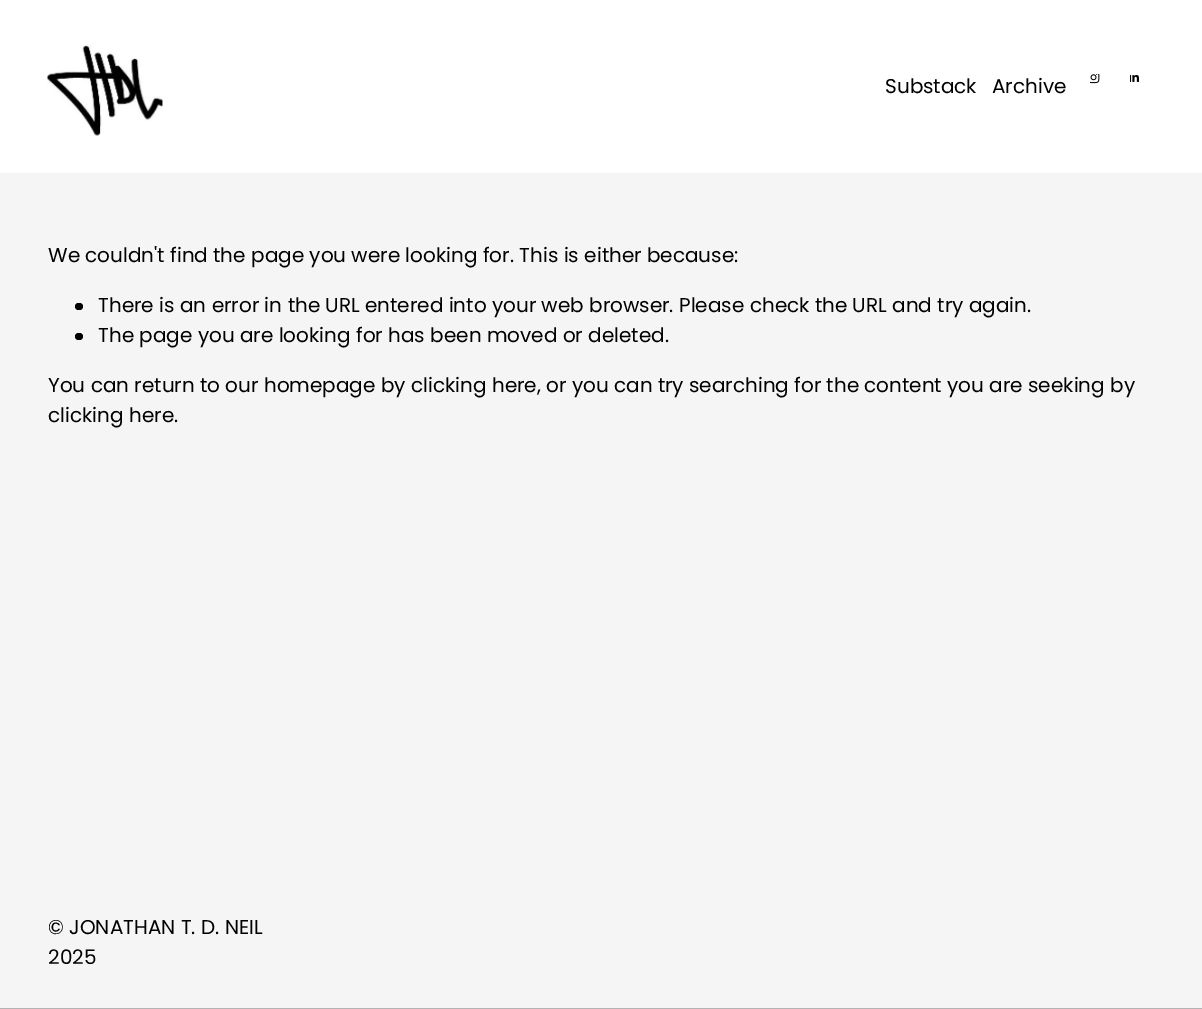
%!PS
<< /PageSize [1202 1009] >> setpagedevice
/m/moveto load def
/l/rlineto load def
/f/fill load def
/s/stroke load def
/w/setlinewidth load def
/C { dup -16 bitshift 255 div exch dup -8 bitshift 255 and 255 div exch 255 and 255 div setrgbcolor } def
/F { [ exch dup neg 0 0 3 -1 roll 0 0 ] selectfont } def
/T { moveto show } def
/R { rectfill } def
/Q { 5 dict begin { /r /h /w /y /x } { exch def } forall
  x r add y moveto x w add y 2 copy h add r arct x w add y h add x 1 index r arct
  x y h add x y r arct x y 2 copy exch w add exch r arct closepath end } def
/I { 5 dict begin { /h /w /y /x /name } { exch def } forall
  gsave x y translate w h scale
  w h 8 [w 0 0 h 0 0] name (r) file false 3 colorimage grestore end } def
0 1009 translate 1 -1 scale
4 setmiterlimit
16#F5F5F5 C
0 0 1202 1009 R
16#FFFFFF C
0 0 1202 173 R
(1.rgb) 47 45 116 92 I
/Poppins-Regular 20 F
16#000000 C
(Substack) 885 93 T
(Archive) 992 93 T
(2.rgb) 1090 74 10 10 I
(3.rgb) 1130 74 9 8 I
(We couldn't find the page you were looking for. This is either because:) 48 262 T
75 303 8 7 3.5 Q f
(There is an error in the URL entered into your web browser. Please check the URL and try again.) 98 312 T
75 333 8 7 3.5 Q f
(The page you are looking for has been moved or deleted.) 98 342 T
(You can return to our homepage by clicking here, or you can try searching for the content you are seeking by) 48 392 T
(clicking here.) 48 422 T
(© JONATHAN T. D. NEIL) 48 934 T
(2025) 48 964 T
1.2 w
2 setlinecap
-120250 831.5 m 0 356 l 0 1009.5 m 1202.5 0 l s
showpage
